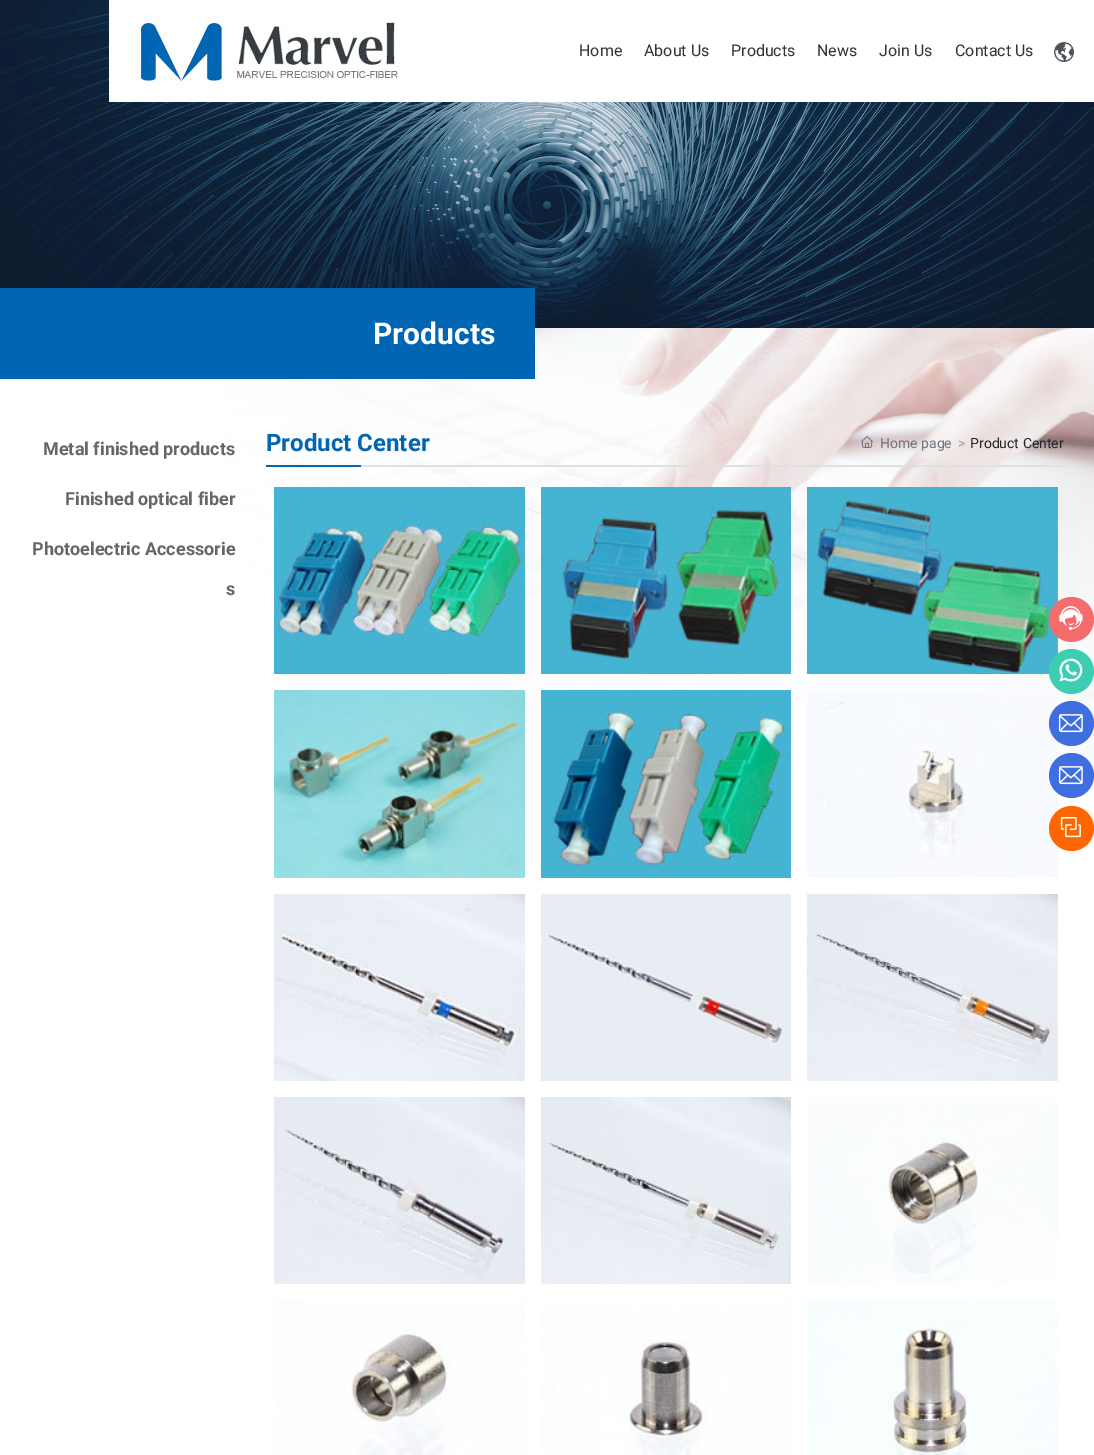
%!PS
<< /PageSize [1094 1455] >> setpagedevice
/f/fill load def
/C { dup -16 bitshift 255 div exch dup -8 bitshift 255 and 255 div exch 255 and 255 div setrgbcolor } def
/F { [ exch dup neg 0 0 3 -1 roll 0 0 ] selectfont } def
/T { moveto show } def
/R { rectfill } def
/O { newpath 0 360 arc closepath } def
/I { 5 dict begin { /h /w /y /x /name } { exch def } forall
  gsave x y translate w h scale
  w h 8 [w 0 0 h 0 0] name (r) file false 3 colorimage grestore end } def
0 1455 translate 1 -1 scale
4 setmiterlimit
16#FFFFFF C
0 0 1094 1455 R
(1.rgb) 0 0 1094 328 I
109 0 985 102 R
(2.rgb) 135 16 263 72 I
/Roboto-Regular 16 F
16#333333 C
(Home) 579 56 T
(About Us) 644 56 T
(Products) 731 56 T
(News) 817 56 T
(Join Us) 879 56 T
(Contact Us) 955 56 T
(3.rgb) 1054 42 20 20 I
(4.rgb) 224 328 870 461 I
16#0065B3 C
0 288 535 91 R
/Roboto-Bold 30 F
16#FFFFFF C
(Products) 373 344 T
/Roboto-Bold 18 F
16#666666 C
(Metal finished products) 43 455 T
(Finished optical fiber) 65 505 T
(Photoelectric Accessorie) 32 555 T
(s) 226 595 T
/Roboto-Bold 24 F
16#0066B3 C
(Product Center) 266 451 T
16#0065B3 C
266 465 95 2 R
(5.rgb) 861 436 12 12 I
/Roboto-Regular 14 F
16#6C757D C
(Home page) 880 448 T
16#999999 C
(>) 958 448 T
16#212529 C
(Product Center) 970 448 T
16#E0E0E0 C
361 465 706 2 R
(6.rgb) 274 487 251 187 I
(7.rgb) 541 487 250 187 I
(8.rgb) 807 487 251 187 I
(9.rgb) 274 690 251 188 I
(10.rgb) 541 690 250 188 I
(11.rgb) 807 690 251 188 I
(12.rgb) 274 894 251 187 I
(13.rgb) 541 894 250 187 I
(14.rgb) 807 894 251 187 I
(15.rgb) 274 1097 251 187 I
(16.rgb) 541 1097 250 187 I
(17.rgb) 807 1097 251 187 I
(18.rgb) 274 1300 251 155 I
(19.rgb) 541 1300 250 155 I
(20.rgb) 807 1300 251 155 I
16#F56C6C C
1071.5 619.5 22.5 O f
(21.rgb) 1059 606 24 25 I
16#3DCEB2 C
1071.5 671.5 22.5 O f
(22.rgb) 1059 658 24 24 I
16#3F6EE0 C
1071.5 723.5 22.5 O f
(23.rgb) 1058 714 25 19 I
1071.5 775.5 22.5 O f
(23.rgb) 1058 766 25 19 I
16#FF6600 C
1071.5 828.5 22.5 O f
(24.rgb) 1060 817 21 21 I
showpage
